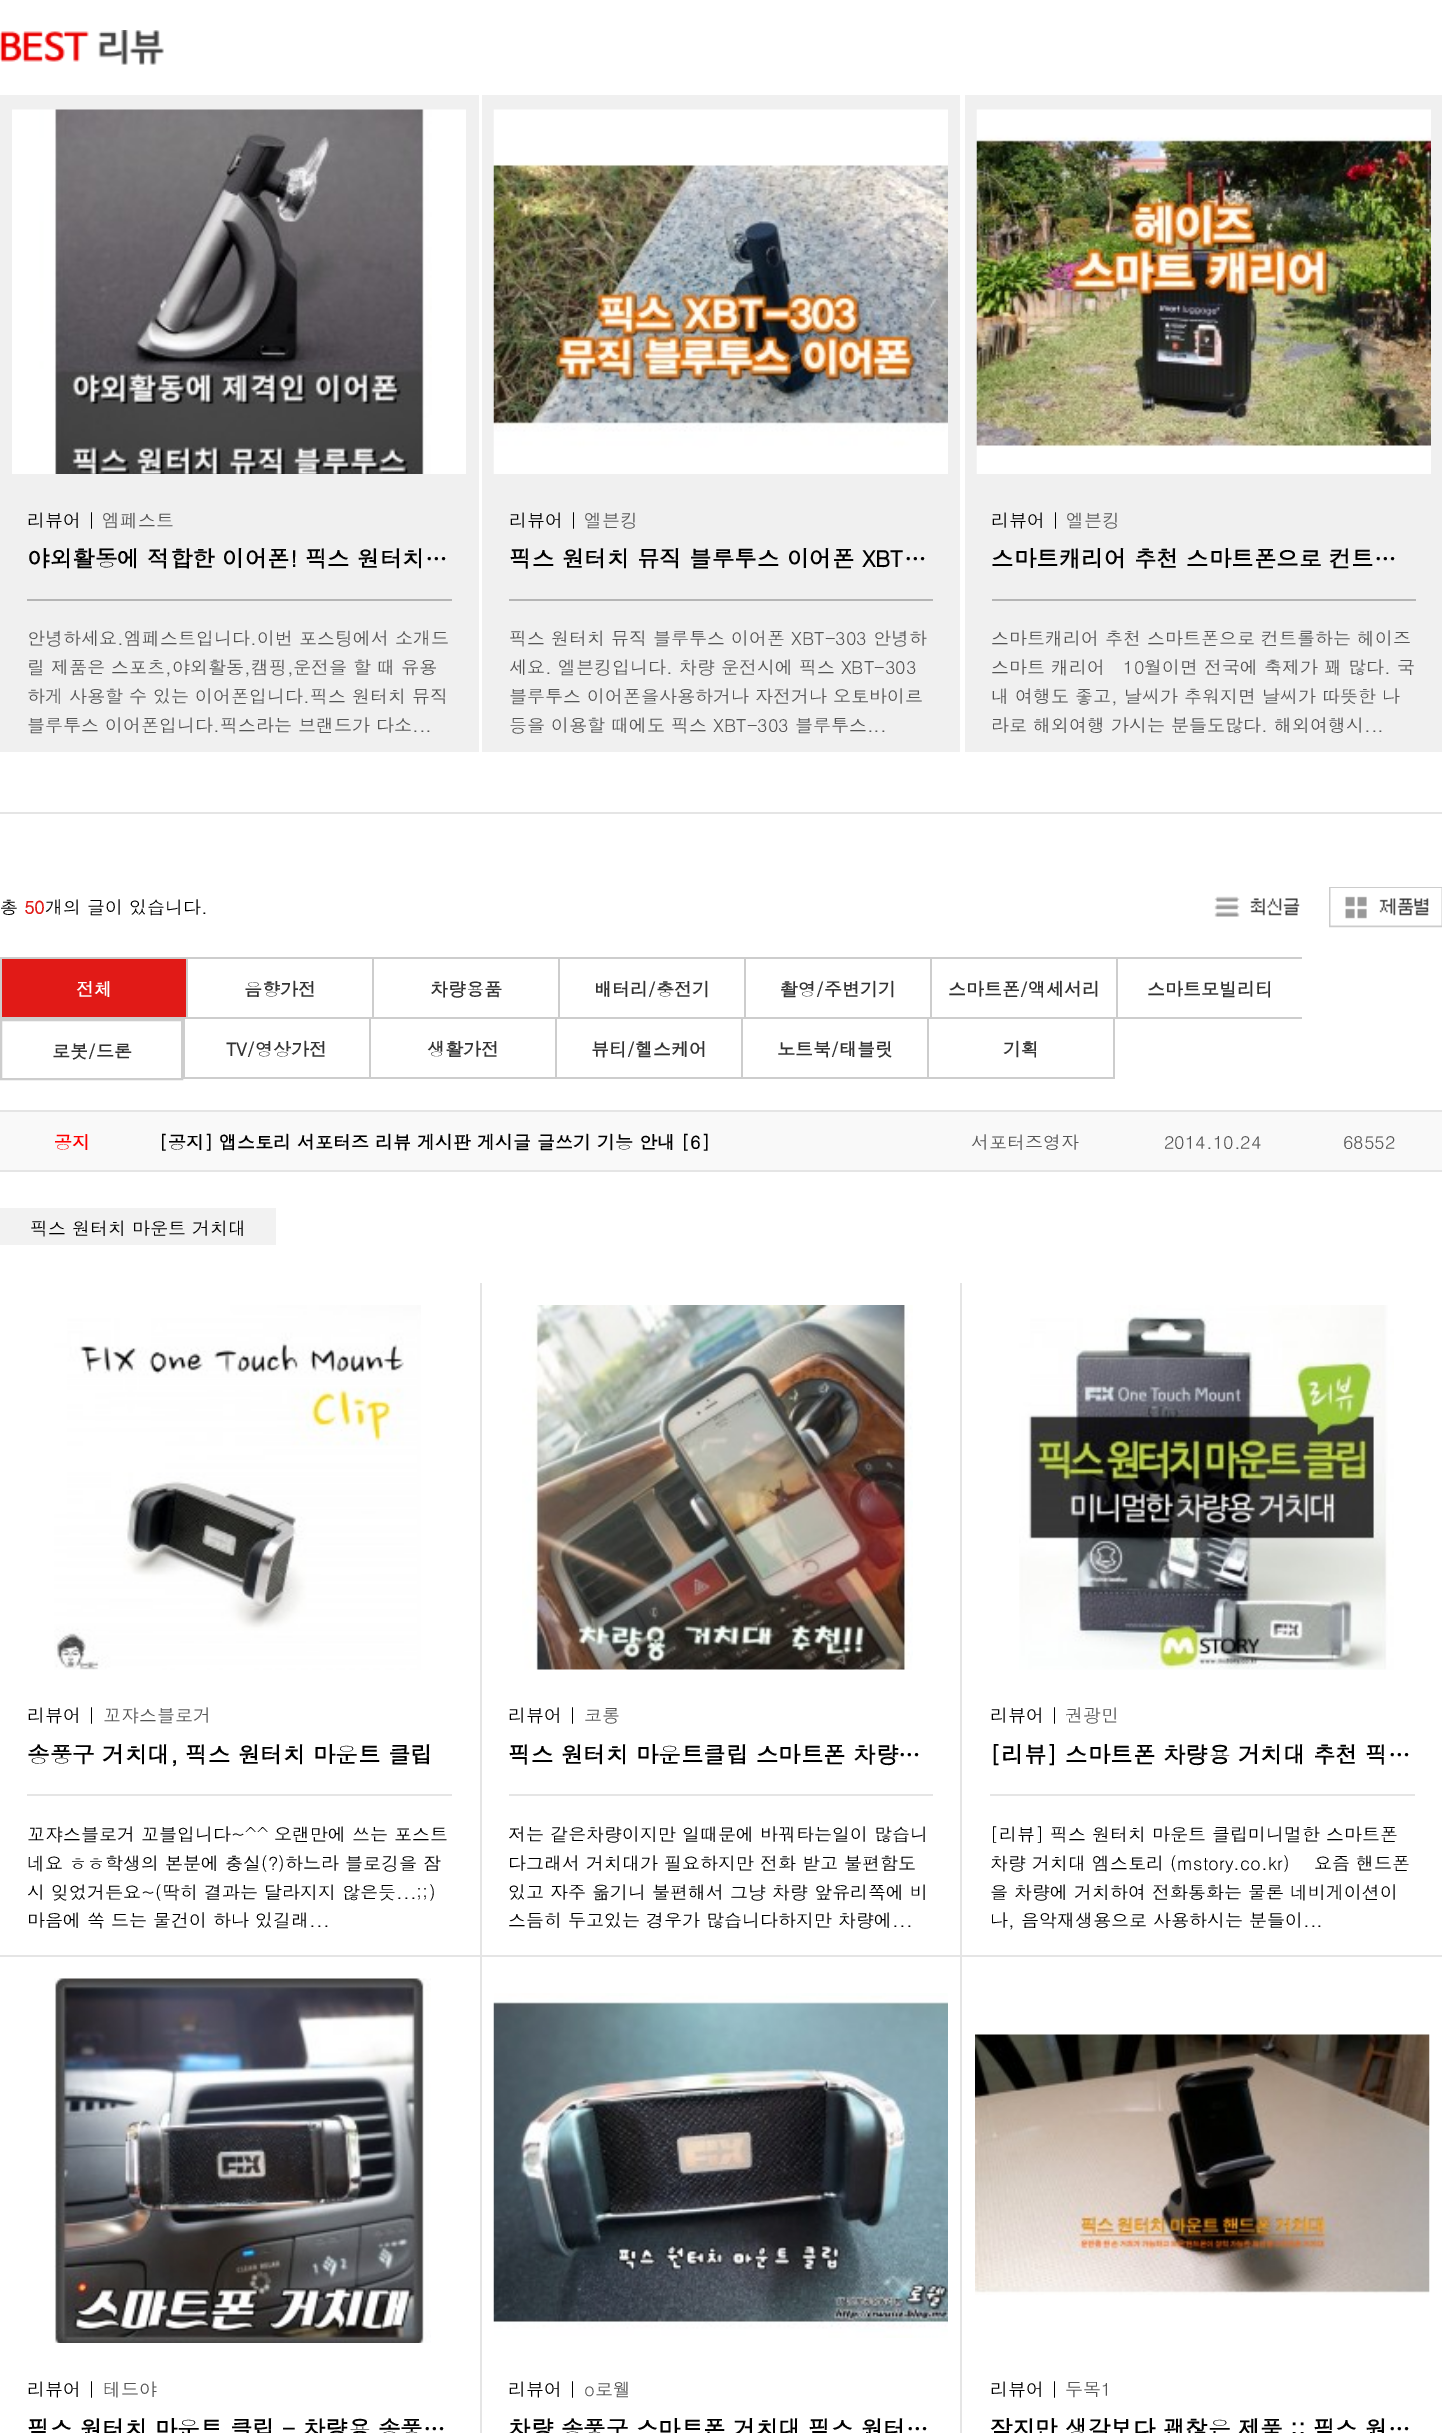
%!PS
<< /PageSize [1442 2433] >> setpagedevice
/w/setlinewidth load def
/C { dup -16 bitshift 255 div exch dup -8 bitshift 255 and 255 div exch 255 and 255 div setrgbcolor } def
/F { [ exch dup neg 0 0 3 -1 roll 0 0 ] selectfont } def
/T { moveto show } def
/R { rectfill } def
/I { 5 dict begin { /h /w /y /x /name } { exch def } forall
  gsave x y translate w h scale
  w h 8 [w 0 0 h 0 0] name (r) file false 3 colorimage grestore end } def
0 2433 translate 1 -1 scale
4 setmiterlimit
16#FFFFFF C
0 0 1442 2433 R
16#E5E5E5 C
0 812 1442 2 R
(1.rgb) 0 30 164 35 I
16#F0F0F0 C
0 95 479 657 R
(2.rgb) 12 109 454 365 I
16#B5B5B5 C
27 599 425 2 R
/Dotum-Regular 18 F
16#000000 C
(리뷰어 |) 27 527 T
16#555555 C
(엠페스트) 102 527 T
/Dotum-Bold 22.5 F
16#000000 C
(야외활동에 적합한 이어폰! 픽스 원터치…) 27 567 T
/Dotum-Regular 18 F
16#555555 C
(안녕하세요.엠페스트입니다.이번 포스팅에서 소개드) 27 645 T
(릴 제품은 스포츠,야외활동,캠핑,운전을 할 때 유용) 27 674 T
(하게 사용할 수 있는 이어폰입니다.픽스 원터치 뮤직) 27 703 T
(블루투스 이어폰입니다.픽스라는 브랜드가 다소...) 27 732 T
16#F0F0F0 C
482 95 478 657 R
(3.rgb) 493 109 455 365 I
16#B5B5B5 C
509 599 424 2 R
16#000000 C
(리뷰어 |) 509 527 T
16#555555 C
(엘븐킹) 584 527 T
/Dotum-Bold 22.5 F
16#000000 C
(픽스 원터치 뮤직 블루투스 이어폰 XBT…) 509 567 T
/Dotum-Regular 18 F
16#555555 C
(픽스 원터치 뮤직 블루투스 이어폰 XBT-303 안녕하) 509 645 T
(세요. 엘븐킹입니다. 차량 운전시에 픽스 XBT-303) 509 674 T
(블루투스 이어폰을사용하거나 자전거나 오토바이르) 509 703 T
(등을 이용할 때에도 픽스 XBT-303 블루투스...) 509 732 T
16#F0F0F0 C
965 95 477 657 R
(4.rgb) 976 109 455 365 I
16#B5B5B5 C
992 599 424 2 R
16#000000 C
(리뷰어 |) 991 527 T
16#555555 C
(엘븐킹) 1066 527 T
/Dotum-Bold 22.5 F
16#000000 C
(스마트캐리어 추천 스마트폰으로 컨트…) 991 567 T
/Dotum-Regular 18 F
16#555555 C
(스마트캐리어 추천 스마트폰으로 컨트롤하는 헤이즈) 991 645 T
(스마트 캐리어   10월이면 전국에 축제가 꽤 많다. 국) 991 674 T
(내 여행도 좋고, 날씨가 추워지면 날씨가 따뜻한 나) 991 703 T
(라로 해외여행 가시는 분들도많다. 해외여행시...) 991 732 T
16#000000 C
(총) 0 914 T
/Dotum-Bold 18 F
16#E11A17 C
(50) 24 914 T
/Dotum-Regular 18 F
16#000000 C
(개의 글이 있습니다.) 45 914 T
(5.rgb) 1214 896 86 21 I
16#CCCCCC C
2 w
1330 888 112 38 rectstroke
(6.rgb) 1330 888 112 38 I
16#E11A17 C
2 959 184 58 R
16#CDCDCD C
0 957 1302 2 R
0 1017 1302 2 R
0 957 2 62 R
/Dotum-Bold 18 F
16#FFFFFF C
(전체) 76 996 T
16#CDCDCD C
186 957 2 62 R
16#333333 C
(음향가전) 244 996 T
16#CDCDCD C
372 957 2 62 R
16#333333 C
(차량용품) 430 996 T
16#CDCDCD C
558 957 2 62 R
16#333333 C
(배터리/충전기) 594 996 T
16#CDCDCD C
744 957 2 62 R
16#333333 C
(촬영/주변기기) 780 996 T
16#CDCDCD C
930 957 2 62 R
16#333333 C
(스마트폰/액세서리) 948 996 T
16#CDCDCD C
1116 957 2 62 R
16#333333 C
(스마트모빌리티) 1147 996 T
16#CDCDCD C
1 1020 181 59 rectstroke
16#333333 C
(로봇/드론) 52 1058 T
16#CDCDCD C
183 1077 744 2 R
183 1019 2 60 R
16#333333 C
(TV/영상가전) 226 1056 T
16#CDCDCD C
369 1019 2 60 R
16#333333 C
(생활가전) 427 1056 T
16#CDCDCD C
555 1019 2 60 R
16#333333 C
(뷰티/헬스케어) 591 1056 T
16#CDCDCD C
741 1019 2 60 R
16#333333 C
(노트북/태블릿) 777 1056 T
16#CDCDCD C
1113 1019 2 60 R
927 1077 188 2 R
927 1019 2 60 R
16#333333 C
(기획) 1003 1056 T
16#F9F9F9 C
0 1112 1442 58 R
16#FF0000 C
(공지) 54 1149 T
16#000000 C
([공지] 앱스토리 서포터즈 리뷰 게시판 게시글 글쓰기 기능 안내 [6]) 159 1149 T
/Dotum-Regular 18 F
16#555555 C
(서포터즈영자) 971 1149 T
(2014.10.24) 1164 1149 T
16#E5E5E5 C
0 1110 1442 2 R
0 1170 1442 2 R
16#555555 C
(68552) 1343 1149 T
16#F2F2F2 C
0 1208 276 37 R
16#000000 C
(픽스 원터치 마운트 거치대) 30 1235 T
16#E5E5E5 C
480 1283 2 673 R
0 1955 482 2 R
(7.rgb) 54 1305 367 365 I
27 1794 425 2 R
16#000000 C
(리뷰어 |) 27 1722 T
16#555555 C
(꼬쟈스블로거) 103 1722 T
/Dotum-Bold 22.5 F
16#000000 C
(송풍구 거치대, 픽스 원터치 마운트 클립) 27 1763 T
/Dotum-Regular 18 F
(꼬쟈스블로거 꼬블입니다~^^ 오랜만에 쓰는 포스트) 27 1841 T
(네요 ㅎㅎ학생의 본분에 충실\(?\)하느라 블로깅을 잠) 27 1870 T
(시 잊었거든요~\(딱히 결과는 달라지지 않은듯...;;\)) 27 1899 T
(마음에 쏙 드는 물건이 하나 있길래...) 27 1927 T
16#E5E5E5 C
960 1283 2 673 R
482 1955 960 2 R
(8.rgb) 522 1305 391 365 I
509 1794 424 2 R
16#000000 C
(리뷰어 |) 508 1722 T
16#555555 C
(코롱) 584 1722 T
/Dotum-Bold 22.5 F
16#000000 C
(픽스 원터치 마운트클립 스마트폰 차량…) 508 1763 T
/Dotum-Regular 18 F
(저는 같은차량이지만 일때문에 바꿔타는일이 많습니) 508 1841 T
(다그래서 거치대가 필요하지만 전화 받고 불편함도) 508 1870 T
(있고 자주 옮기니 불편해서 그냥 차량 앞유리쪽에 비) 508 1899 T
(스듬히 두고있는 경우가 많습니다하지만 차량에...) 508 1927 T
(9.rgb) 1019 1305 375 365 I
16#E5E5E5 C
990 1794 425 2 R
16#000000 C
(리뷰어 |) 990 1722 T
16#555555 C
(권광민) 1065 1722 T
/Dotum-Bold 22.5 F
16#000000 C
([리뷰] 스마트폰 차량용 거치대 추천 픽…) 990 1763 T
/Dotum-Regular 18 F
([리뷰] 픽스 원터치 마운트 클립미니멀한 스마트폰) 990 1841 T
(차량 거치대 엠스토리 \(mstory.co.kr\)) 990 1870 T
(요즘 핸드폰) 1314 1870 T
(을 차량에 거치하여 전화통화는 물론 네비게이션이) 990 1899 T
(나, 음악재생용으로 사용하시는 분들이...) 990 1927 T
16#E5E5E5 C
480 1956 2 477 R
(10.rgb) 54 1978 377 365 I
16#000000 C
(리뷰어 |) 27 2396 T
16#555555 C
(테드야) 103 2396 T
/Dotum-Bold 22.5 F
16#000000 C
(픽스 원터치 마운트 클립 - 차량용 송풍…) 27 2437 T
16#E5E5E5 C
960 1956 2 477 R
(11.rgb) 493 1993 455 345 I
/Dotum-Regular 18 F
16#000000 C
(리뷰어 |) 508 2396 T
16#555555 C
(o로웰) 584 2396 T
/Dotum-Bold 22.5 F
16#000000 C
(차량 송풍구 스마트폰 거치대 픽스 원터…) 508 2437 T
(12.rgb) 975 2033 455 262 I
/Dotum-Regular 18 F
(리뷰어 |) 990 2396 T
16#555555 C
(두목1) 1065 2396 T
/Dotum-Bold 22.5 F
16#000000 C
(작지만 생각보다 괜찮은 제품 :: 픽스 원…) 990 2437 T
showpage
